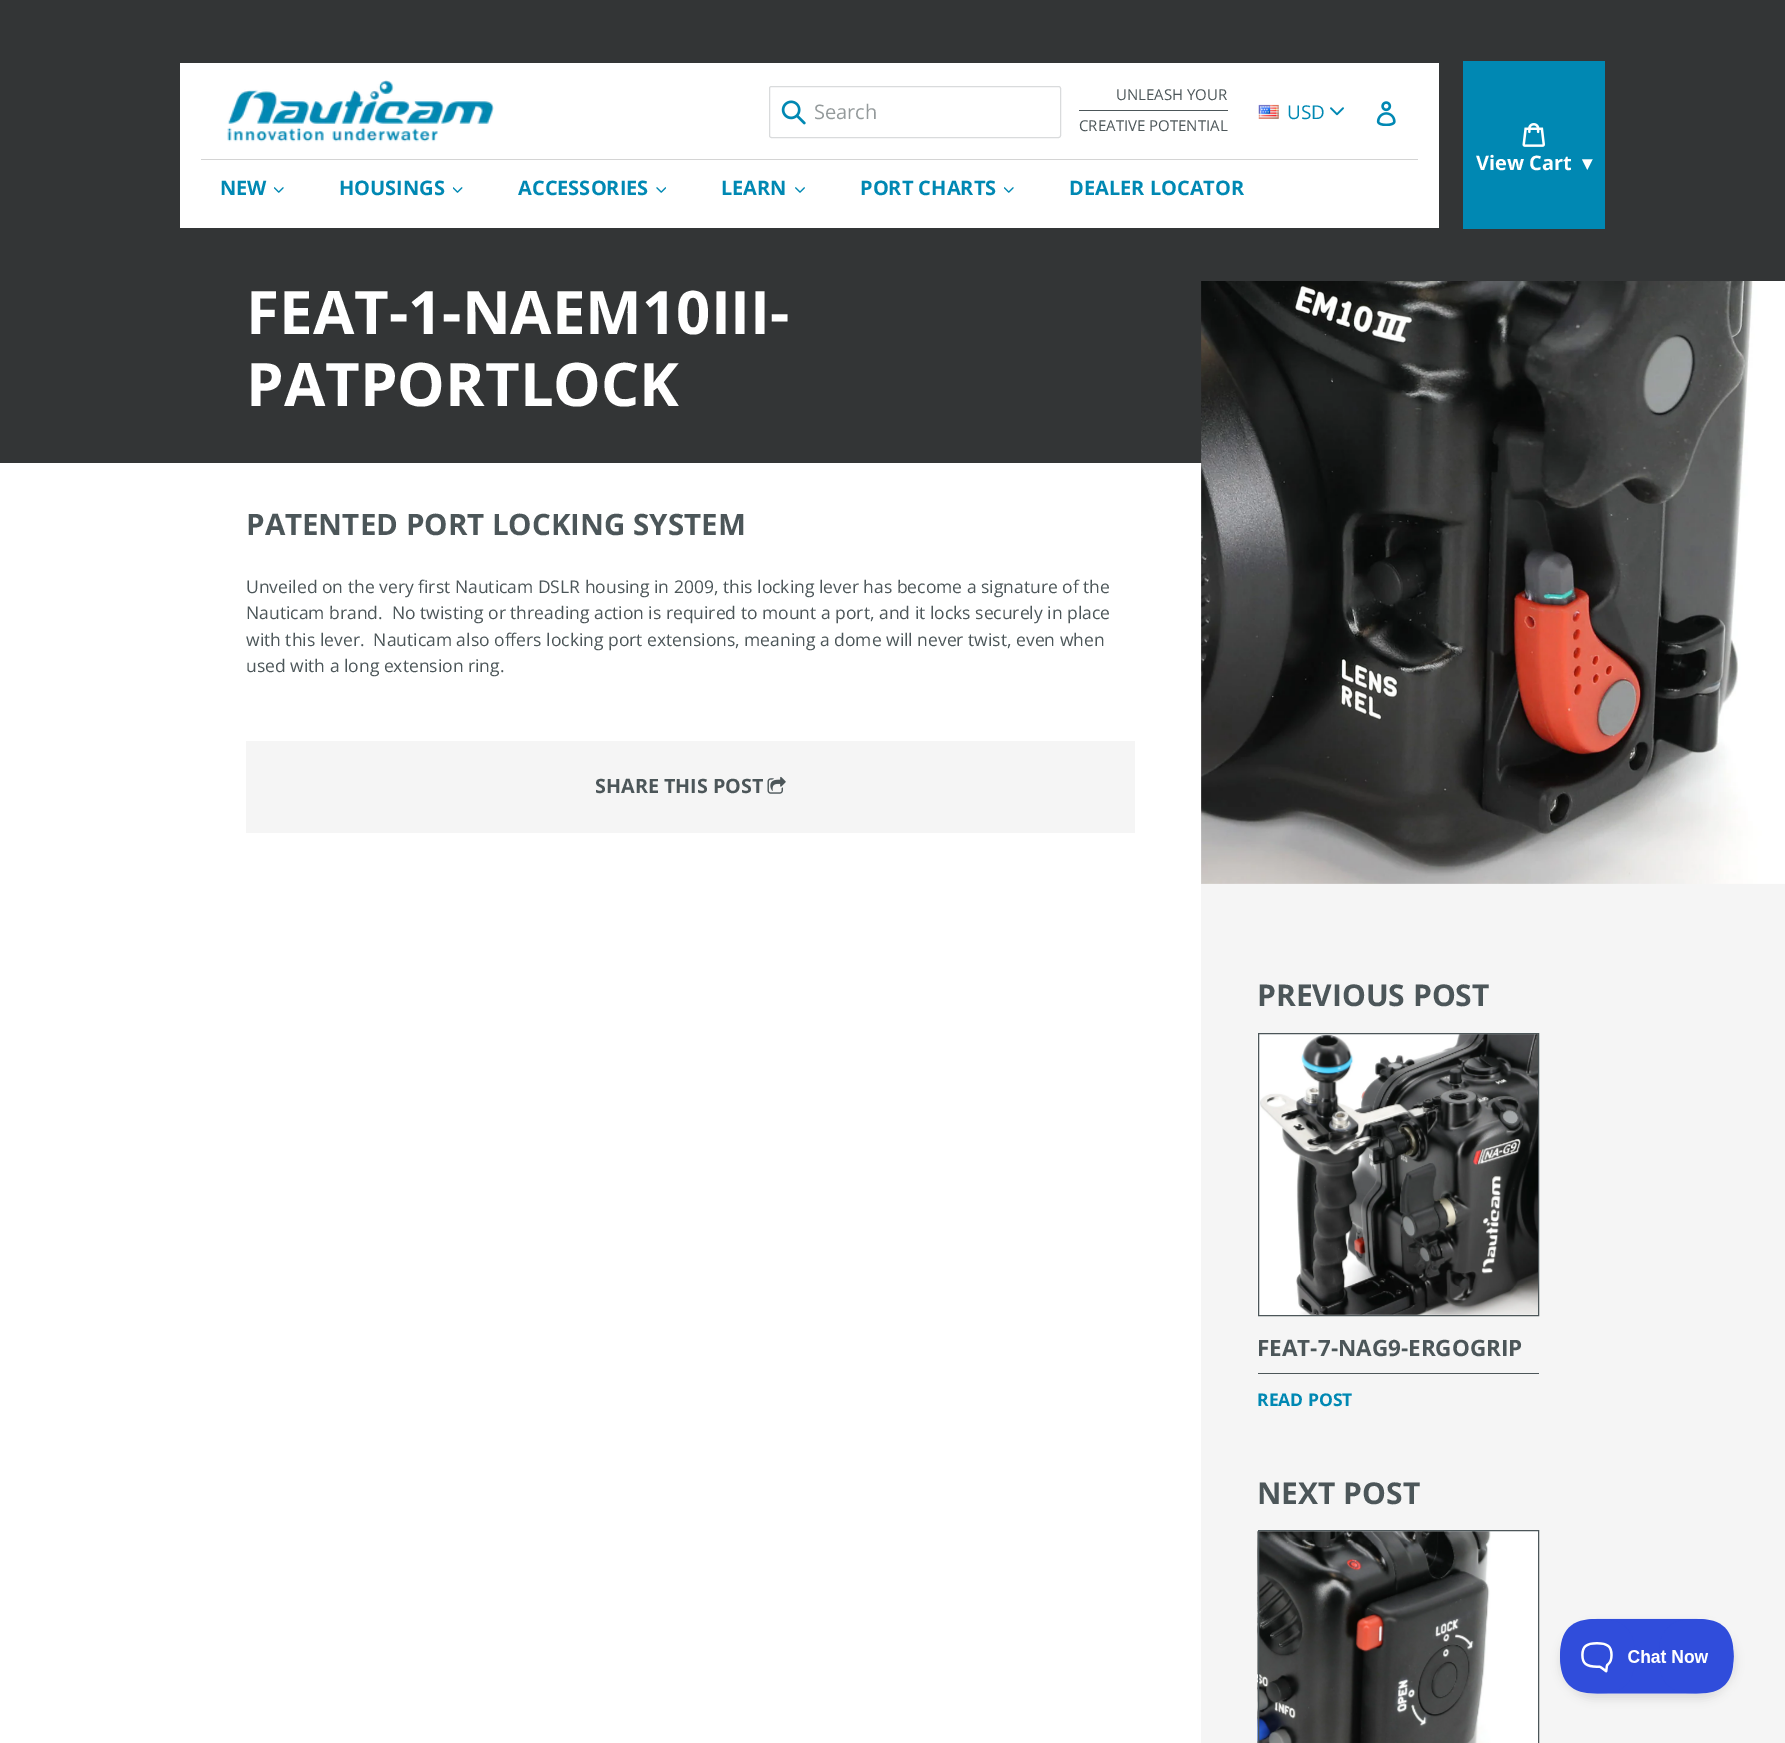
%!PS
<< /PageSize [1785 1743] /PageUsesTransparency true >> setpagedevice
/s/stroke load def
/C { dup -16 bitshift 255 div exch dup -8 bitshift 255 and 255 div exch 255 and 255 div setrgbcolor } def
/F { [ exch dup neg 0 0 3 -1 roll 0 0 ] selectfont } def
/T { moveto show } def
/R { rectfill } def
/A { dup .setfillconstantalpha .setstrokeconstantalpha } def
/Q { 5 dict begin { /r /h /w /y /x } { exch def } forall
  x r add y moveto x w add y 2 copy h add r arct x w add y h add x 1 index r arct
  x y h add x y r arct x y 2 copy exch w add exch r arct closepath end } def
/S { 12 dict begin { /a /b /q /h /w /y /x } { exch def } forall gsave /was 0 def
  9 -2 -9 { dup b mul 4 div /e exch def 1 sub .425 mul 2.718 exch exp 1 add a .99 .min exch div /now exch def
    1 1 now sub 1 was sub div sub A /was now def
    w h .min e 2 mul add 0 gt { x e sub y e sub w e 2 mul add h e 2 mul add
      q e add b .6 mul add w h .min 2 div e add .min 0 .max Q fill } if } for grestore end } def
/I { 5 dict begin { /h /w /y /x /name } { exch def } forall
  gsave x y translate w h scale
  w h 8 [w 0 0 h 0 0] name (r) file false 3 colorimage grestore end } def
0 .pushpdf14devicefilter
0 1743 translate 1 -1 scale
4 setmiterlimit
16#FFFFFF C
0 0 1785 1743 R
16#333536 C
0 0 1785 463 R
16#FFFFFF C
180 63 1259 165 R
16#D4D4D4 C
201 159 1217 1 R
(1.rgb) 227 80 267 62 I
16#D9DBDC C
769.5 86.5 291 51 2 Q s
(2.rgb) 781 100 25 25 I
/OpenSans-Regular 20 F
16#949A9B C
(Search) 814 119 T
/OpenSans-Regular 15 F
16#4C5659 C
(UNLEASH YOUR) 1116 100 T
1079 110 149 1 R
(CREATIVE POTENTIAL) 1079 131 T
(3.rgb) 1258 104 21 15 I
/OpenSans-Regular 19 F
16#0088B3 C
(USD) 1287 119 T
(4.rgb) 1330 107 14 9 I
(5.rgb) 1376 101 20 25 I
/OpenSans-Bold 20 F
(NEW) 220 195 T
(6.rgb) 274 187 10 6 I
(HOUSINGS) 339 195 T
(7.rgb) 453 187 10 6 I
(ACCESSORIES) 518 195 T
(8.rgb) 656 187 10 6 I
(LEARN) 721 195 T
(9.rgb) 795 187 10 6 I
(PORT CHARTS) 860 195 T
(6.rgb) 1004 187 10 6 I
(DEALER LOCATOR) 1069 195 T
1463 61 142 168 R
(10.rgb) 1522 123 23 24 I
16#FFFFFF C
(View Cart) 1476 170 T
/DejaVuSans-Bold 20 F
(▾) 1582 170 T
/OpenSans-Bold 60 F
(FEAT-1-NAEM10III-) 246 334 T
(PATPORTLOCK) 246 406 T
/OpenSans-Bold 29.5 F
16#4C5659 C
(PATENTED PORT LOCKING SYSTEM) 246 535 T
/OpenSans-Regular 17.5 F
(Unveiled on the very first Nauticam DSLR housing in 2009, this locking lever has become a signature of the) 246 593 T
(Nauticam brand.  No twisting or threading action is required to mount a port, and it locks securely in place) 246 619 T
(with this lever.  Nauticam also offers locking port extensions, meaning a dome will never twist, even when) 246 646 T
(used with a long extension ring.) 246 672 T
16#F5F5F5 C
246 741 889 92 R
/OpenSans-Bold 19.75 F
16#4C5659 C
(SHARE THIS POST) 595 793 T
(11.rgb) 767 776 19 18 I
16#F5F5F5 C
1201 463 584 1280 R
(12.rgb) 1201 281 584 603 I
/OpenSans-Bold 30 F
16#4C5659 C
(PREVIOUS POST) 1257 1006 T
(13.rgb) 1257 1033 281 283 I
1258.5 1033.5 280 282 rectstroke
/OpenSans-Bold 22.5 F
(FEAT-7-NAG9-ERGOGRIP) 1257 1356 T
1258 1373 281 1 R
/OpenSans-Bold 17.5 F
16#0088B3 C
(READ POST) 1257 1406 T
/OpenSans-Bold 30 F
16#4C5659 C
(NEXT POST) 1257 1504 T
16#FFFFFF C
1259 1531 279 212 R
(14.rgb) 1257 1531 234 212 I
16#4C5659 C
1258.5 1530.5 280 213 rectstroke
16#000000 C
1560 1624 175 75 37.5 4.5 .1 S
(15.rgb) 1560 1618 174 76 I
.poppdf14devicefilter showpage
